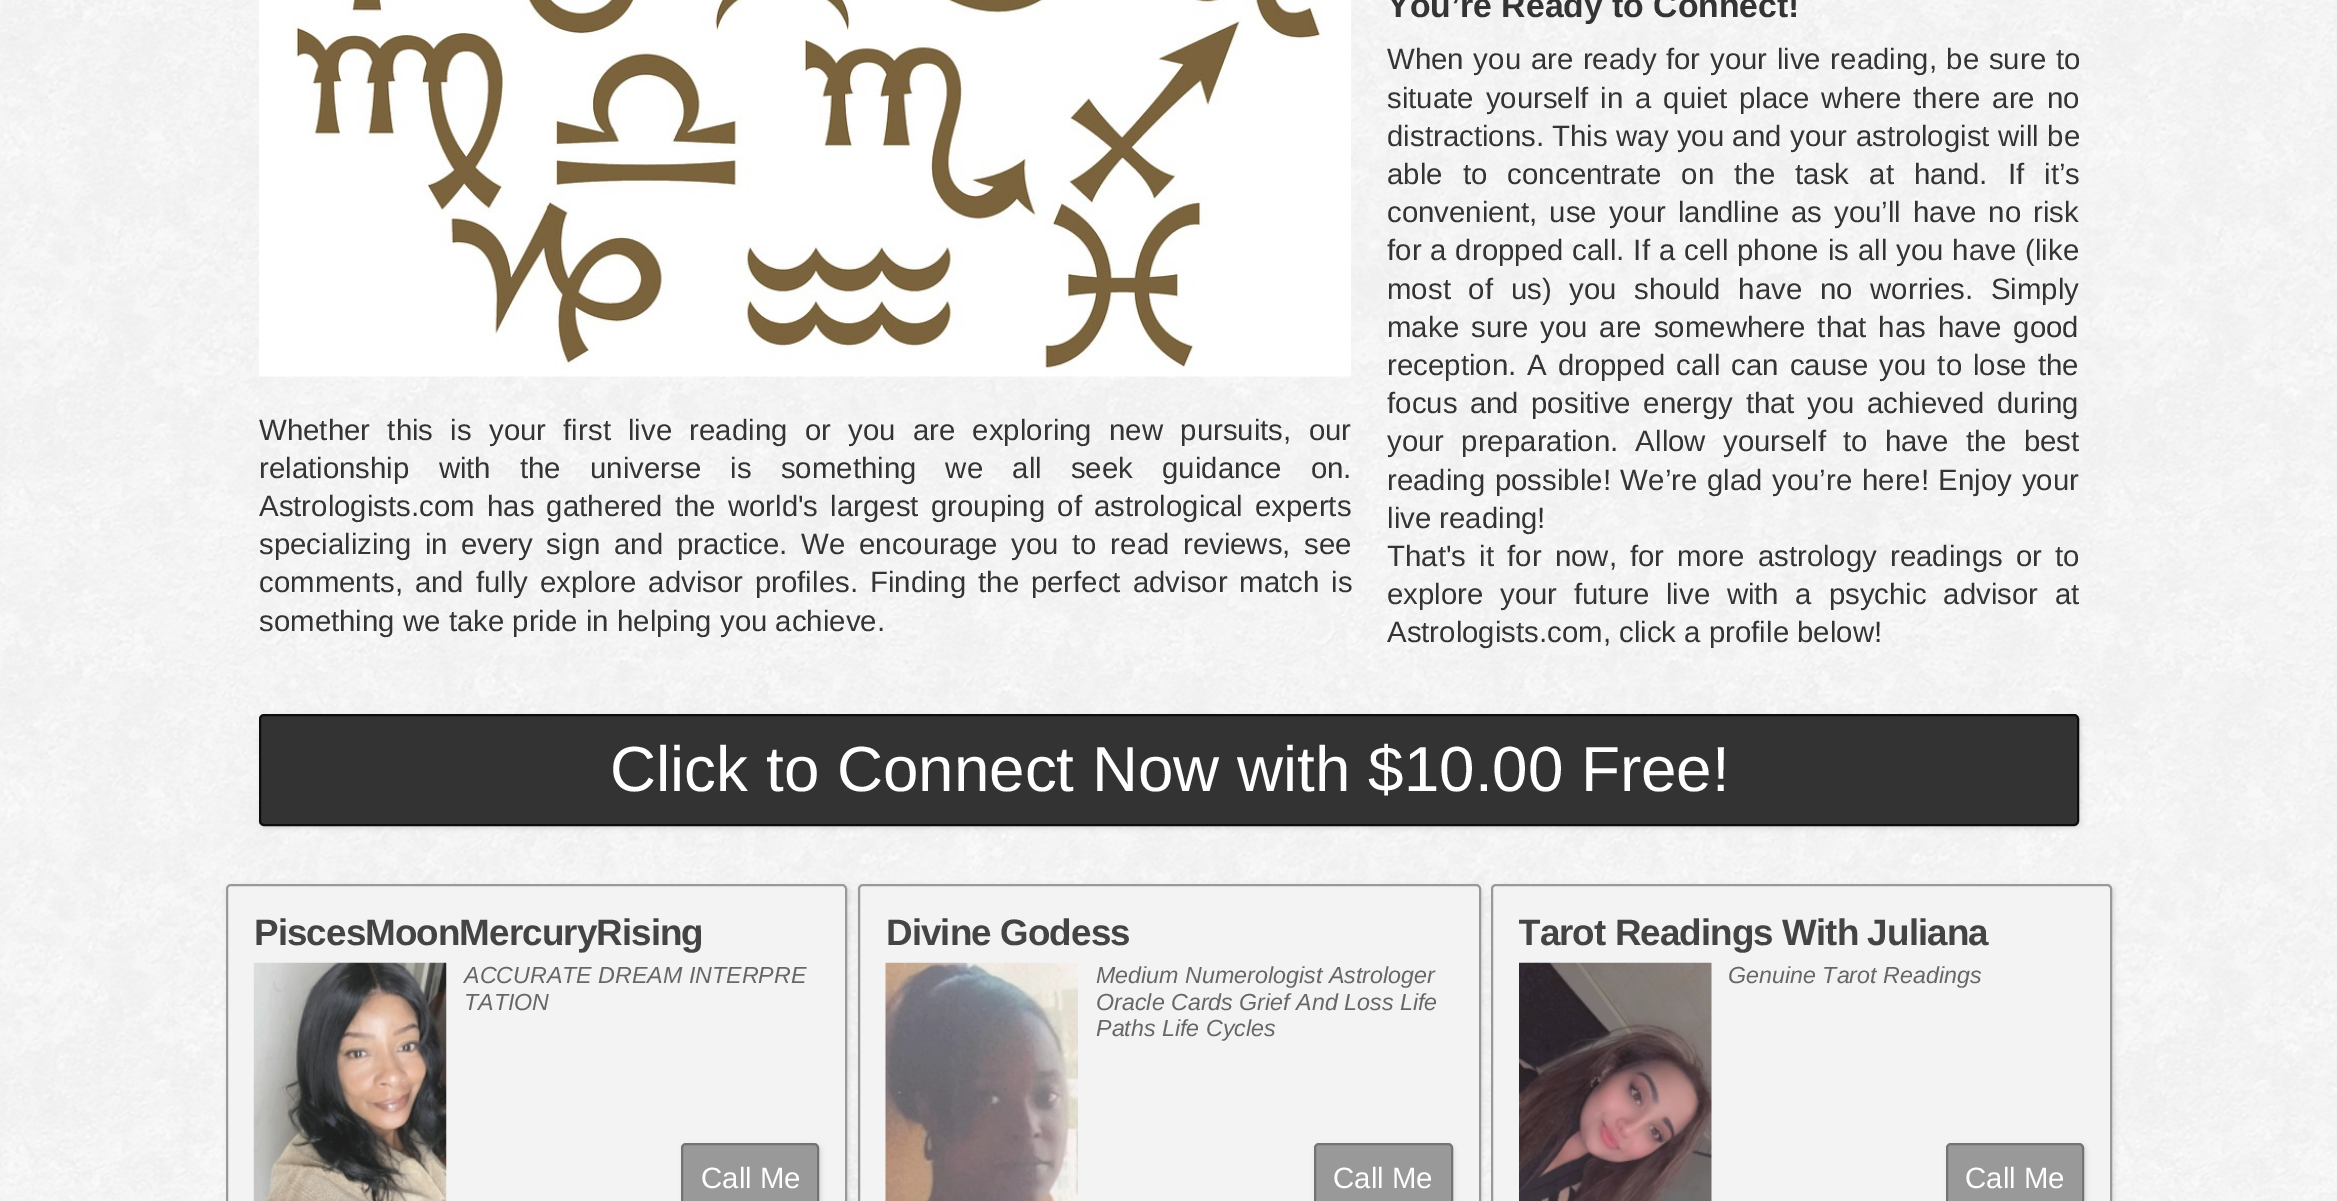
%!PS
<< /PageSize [2337 1201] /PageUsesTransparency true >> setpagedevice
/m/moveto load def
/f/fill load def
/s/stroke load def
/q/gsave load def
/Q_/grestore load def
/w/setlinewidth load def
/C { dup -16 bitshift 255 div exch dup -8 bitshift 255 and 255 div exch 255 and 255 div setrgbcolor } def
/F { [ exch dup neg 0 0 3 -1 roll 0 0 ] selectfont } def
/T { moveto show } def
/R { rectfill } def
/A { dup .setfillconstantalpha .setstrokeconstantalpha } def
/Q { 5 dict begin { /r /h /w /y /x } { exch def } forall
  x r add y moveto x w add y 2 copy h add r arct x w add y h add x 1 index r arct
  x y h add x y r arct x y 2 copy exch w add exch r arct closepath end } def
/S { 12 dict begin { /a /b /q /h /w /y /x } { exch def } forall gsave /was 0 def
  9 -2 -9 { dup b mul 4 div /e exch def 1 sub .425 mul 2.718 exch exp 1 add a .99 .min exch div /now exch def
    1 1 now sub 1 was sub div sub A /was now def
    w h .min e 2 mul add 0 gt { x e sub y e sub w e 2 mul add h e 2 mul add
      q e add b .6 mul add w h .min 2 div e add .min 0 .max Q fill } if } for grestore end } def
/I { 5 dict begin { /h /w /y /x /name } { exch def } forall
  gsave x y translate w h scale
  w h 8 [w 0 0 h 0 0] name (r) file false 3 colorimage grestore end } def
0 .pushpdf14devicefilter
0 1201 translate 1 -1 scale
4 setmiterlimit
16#FFFFFF C
0 0 2337 1201 R
(1.rgb) 0 0 2337 1201 I
(2.rgb) 259 0 1092 377 I
/LiberationSans-Regular 29.4 F
16#343434 C
259 440 m 9.1 0 32 (Whether this is your first live reading or you are exploring new pursuits, our) widthshow
259 478 m 21 0 32 (relationship with the universe is something we all seek guidance on.) widthshow
259 516 m 4 0 32 (Astrologists.com has gathered the world's largest grouping of astrological experts) widthshow
259 554 m 5.4 0 32 (specializing in every sign and practice. We encourage you to read reviews, see) widthshow
259 592 m 3.75 0 32 (comments, and fully explore advisor profiles. Finding the perfect advisor match is) widthshow
(something we take pride in helping you achieve.) 259 631 T
/LiberationSans-Bold 33.75 F
(You’re Ready to Connect!) 1387 17 T
/LiberationSans-Regular 29.4 F
1387 69 m 1.5 0 32 (When you are ready for your live reading, be sure to) widthshow
1387 108 m 3.75 0 32 (situate yourself in a quiet place where there are no) widthshow
(distractions.) 1387 146 T
1552 146 m .25 0 32 (This way you and your astrologist will be) widthshow
1387 184 m 12 0 32 (able to concentrate on the task at hand. If it’s) widthshow
1387 222 m 3.75 0 32 (convenient, use your landline as you’ll have no risk) widthshow
1387 260 m .75 0 32 (for a dropped call. If a cell phone is all you have \(like) widthshow
1387 299 m 9.5 0 32 (most of us\) you should have no worries. Simply) widthshow
1387 337 m 3.75 0 32 (make sure you are somewhere that has have good) widthshow
1387 375 m 2.75 0 32 (reception. A dropped call can cause you to lose the) widthshow
1387 413 m 4.25 0 32 (focus and positive energy that you achieved during) widthshow
1387 451 m 9 0 32 (your preparation. Allow yourself to have the best) widthshow
1387 490 m 1.5 0 32 (reading possible! We’re glad you’re here! Enjoy your) widthshow
(live reading!) 1387 528 T
1387 566 m 5 0 32 (That's it for now, for more astrology readings or to) widthshow
1387 604 m 8.5 0 32 (explore your future live with a psychic advisor at) widthshow
(Astrologists.com, click a profile below!) 1387 642 T
16#000000 C
261 716 1820 112 5 2.5 .1 S
16#333333 C
260 715 1818 110 4 Q q f Q_
16#0D0D0D C
2 w
s
/LiberationSans-Regular 63.75 F
16#FFFFFF C
(Click to Connect Now with $10.00 Free!) 610 791 T
16#000000 C
228 886 621 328 5 2.5 .1 S
16#F3F3F3 C
227 885 619 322 4 Q q f Q_
16#999999 C
s
/LiberationSans-Bold 36.75 F
16#444444 C
254 945 m -.9 0 (PiscesMoonMercuryRising) ashow
(3.rgb) 253 962 194 239 I
/LiberationSans-Italic 23.25 F
16#666666 C
(ACCURATE DREAM INTERPRE) 464 983 T
(TATION) 464 1010 T
16#000000 C
683 1145 138 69 5 2.5 .1 S
16#999999 C
682 1144 136 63 4 Q q f Q_
16#737373 C
s
/LiberationSans-Regular 29.4 F
16#FFFFFF C
(Call Me) 701 1188 T
16#000000 C
859 886 623 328 5 2.5 .1 S
16#F3F3F3 C
859 885 621 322 4 Q q f Q_
16#999999 C
s
/LiberationSans-Bold 36.75 F
16#444444 C
886 945 m -.9 0 (Divine Godess) ashow
(4.rgb) 885 962 193 239 I
/LiberationSans-Italic 23.25 F
16#666666 C
(Medium Numerologist Astrologer) 1096 983 T
(Oracle Cards Grief And Loss Life) 1096 1010 T
(Paths Life Cycles) 1096 1036 T
16#000000 C
1316 1145 138 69 5 2.5 .1 S
16#999999 C
1315 1144 137 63 4 Q q f Q_
16#737373 C
s
/LiberationSans-Regular 29.4 F
16#FFFFFF C
(Call Me) 1333 1188 T
16#000000 C
1493 886 621 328 5 2.5 .1 S
16#F3F3F3 C
1492 885 619 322 4 Q q f Q_
16#999999 C
s
q
1519 912 565 42 rectclip
/LiberationSans-Bold 36.75 F
16#444444 C
1518 945 m -.9 0 (Tarot Readings With Juliana) ashow
Q_
(5.rgb) 1519 962 193 239 I
/LiberationSans-Italic 23.25 F
16#666666 C
(Genuine Tarot Readings) 1728 983 T
16#000000 C
1948 1145 138 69 5 2.5 .1 S
16#999999 C
1947 1144 136 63 4 Q q f Q_
16#737373 C
s
/LiberationSans-Regular 29.4 F
16#FFFFFF C
(Call Me) 1965 1188 T
.poppdf14devicefilter showpage
